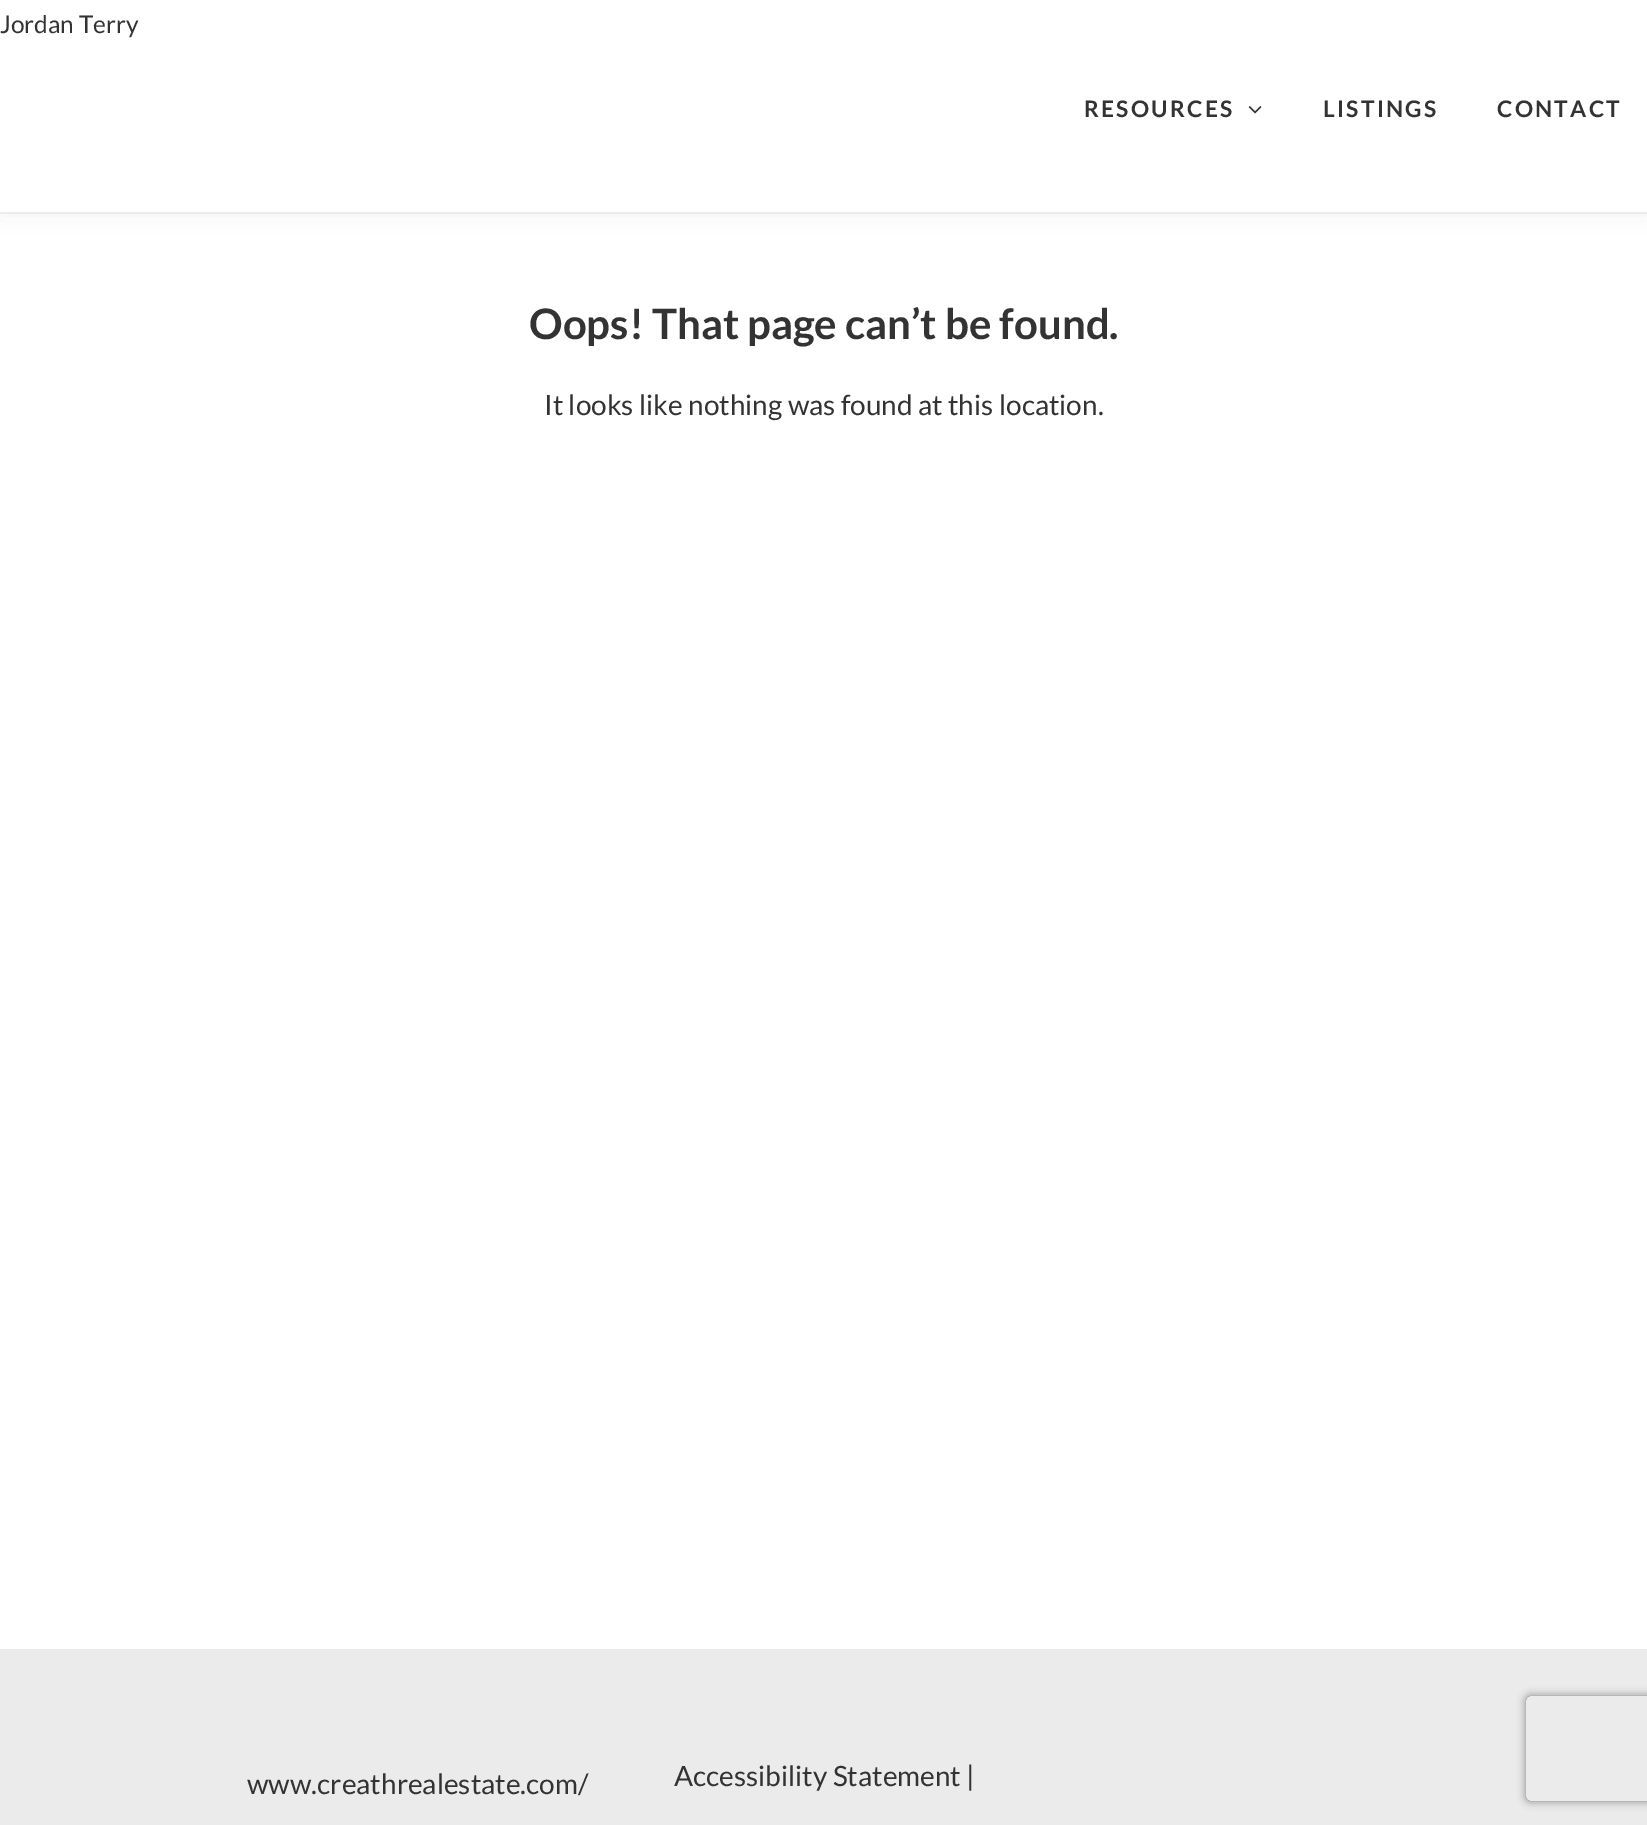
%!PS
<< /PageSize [1647 1825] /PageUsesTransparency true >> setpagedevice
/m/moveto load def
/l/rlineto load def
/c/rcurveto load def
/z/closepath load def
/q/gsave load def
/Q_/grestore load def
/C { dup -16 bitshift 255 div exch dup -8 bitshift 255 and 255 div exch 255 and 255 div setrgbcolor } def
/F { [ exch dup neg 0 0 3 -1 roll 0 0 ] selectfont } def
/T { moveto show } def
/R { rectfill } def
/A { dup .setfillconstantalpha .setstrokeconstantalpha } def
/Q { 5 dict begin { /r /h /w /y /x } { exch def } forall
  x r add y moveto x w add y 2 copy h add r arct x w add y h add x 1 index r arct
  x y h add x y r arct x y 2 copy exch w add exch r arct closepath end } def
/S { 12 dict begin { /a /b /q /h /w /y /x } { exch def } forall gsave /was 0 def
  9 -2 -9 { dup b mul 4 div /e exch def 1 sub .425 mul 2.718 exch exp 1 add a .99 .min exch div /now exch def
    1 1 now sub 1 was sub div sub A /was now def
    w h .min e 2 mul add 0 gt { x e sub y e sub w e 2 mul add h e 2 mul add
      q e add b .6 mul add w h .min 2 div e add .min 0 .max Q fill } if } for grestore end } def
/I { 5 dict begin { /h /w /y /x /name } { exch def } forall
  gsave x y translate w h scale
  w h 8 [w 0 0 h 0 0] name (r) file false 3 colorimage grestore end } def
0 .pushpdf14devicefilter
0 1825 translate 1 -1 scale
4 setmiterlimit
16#FFFFFF C
0 0 1647 1825 R
16#000000 C
0 0 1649 214 0 13 .05 S
16#FFFFFF C
0 0 1647 212 R
16#EBEBEB C
0 212 1647 2 R
/Lato-Regular 24.5 F
16#333333 C
(Jordan Terry) 0 33 T
/Lato-Bold 22.75 F
1084 117 m 2.25 0 (RESOURCES) ashow
(1.rgb) 1248 106 14 8 I
1323 117 m 2.25 0 (LISTINGS) ashow
1497 117 m 2.25 0 (CONTACT) ashow
/Lato-Bold 42 F
(Oops! That page can’t be found.) 529 339 T
/Lato-Regular 28 F
(It looks like nothing was found at this location.) 544 415 T
16#EBEBEB C
0 1649 1647 176 R
16#333333 C
(www.creathrealestate.com/) 247 1794 T
(Accessibility Statement |) 674 1786 T
q
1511 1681 m 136 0 l 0 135 l -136 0 l z 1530 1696 m 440 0 l 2 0 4 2 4 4 c 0 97 l 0 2 -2 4 -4 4 c -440 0 l -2 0 -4 -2 -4 -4 c 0 -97 l 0 -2 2 -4 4 -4 c z eoclip newpath
16#808080 C
1526 1696 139 105 4 4.5 1 S
Q_
.poppdf14devicefilter showpage
